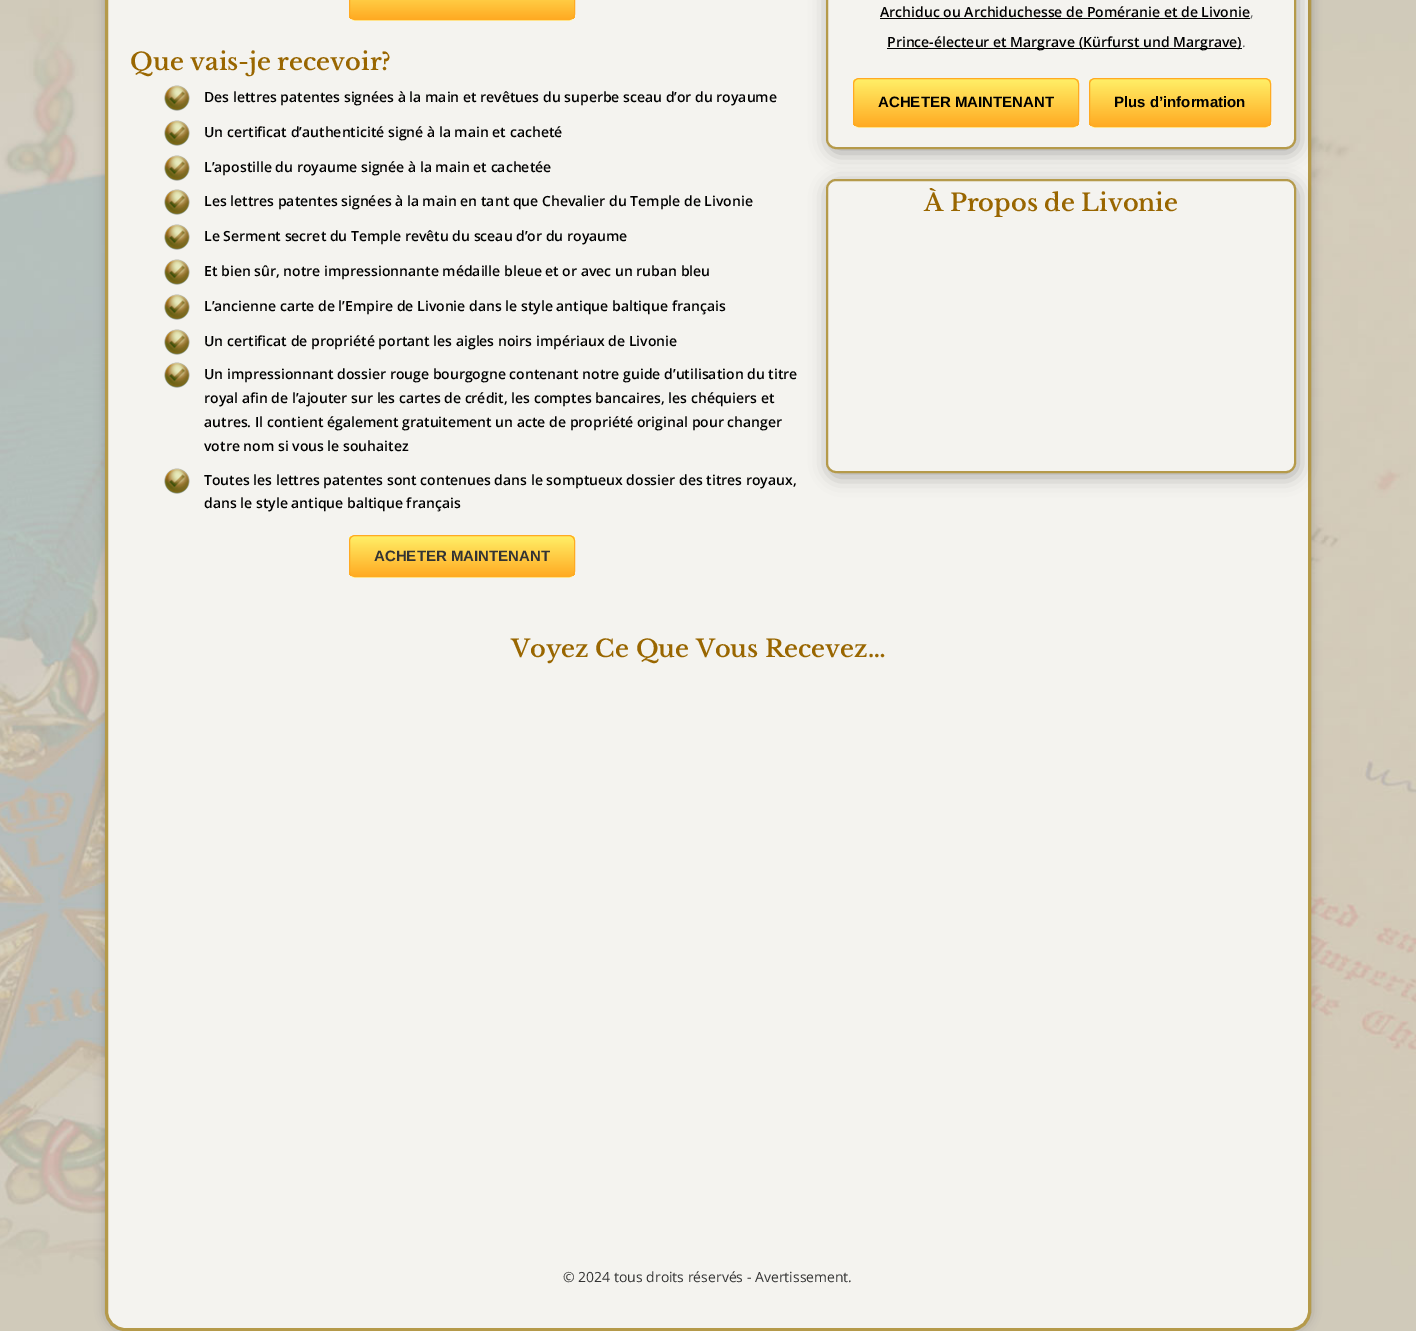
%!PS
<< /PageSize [1416 1331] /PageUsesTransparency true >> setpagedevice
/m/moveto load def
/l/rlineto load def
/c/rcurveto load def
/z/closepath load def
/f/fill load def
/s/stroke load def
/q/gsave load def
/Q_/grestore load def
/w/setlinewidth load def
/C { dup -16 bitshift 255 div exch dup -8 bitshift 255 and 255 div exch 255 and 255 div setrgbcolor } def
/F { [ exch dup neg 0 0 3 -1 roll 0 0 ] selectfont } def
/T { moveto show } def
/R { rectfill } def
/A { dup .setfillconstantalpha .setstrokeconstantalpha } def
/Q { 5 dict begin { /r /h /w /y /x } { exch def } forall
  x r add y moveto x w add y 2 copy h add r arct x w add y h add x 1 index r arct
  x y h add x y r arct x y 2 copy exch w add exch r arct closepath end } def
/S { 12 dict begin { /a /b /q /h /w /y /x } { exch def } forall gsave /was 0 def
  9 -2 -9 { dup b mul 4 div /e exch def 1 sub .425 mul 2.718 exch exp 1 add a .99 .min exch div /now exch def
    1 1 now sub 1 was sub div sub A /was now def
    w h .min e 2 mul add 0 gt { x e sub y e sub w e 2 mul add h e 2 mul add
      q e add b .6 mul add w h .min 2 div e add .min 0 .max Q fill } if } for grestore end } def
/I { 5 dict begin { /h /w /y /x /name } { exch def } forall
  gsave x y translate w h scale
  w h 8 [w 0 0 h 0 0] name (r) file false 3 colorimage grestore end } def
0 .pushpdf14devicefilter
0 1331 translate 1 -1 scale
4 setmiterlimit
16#FFFFFF C
0 0 1416 1331 R
(1.rgb) 0 0 1416 1331 I
16#000000 C
105 -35 1206 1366 20 5 .2 S
16#F4F3EF C
106.5 -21.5 1203 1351 18.5 Q q f Q_
16#B59A4A C
3 w
s
16#FFF6AF C
349 14 m 0 1 l 0 3 3 6 6 6 c 214 0 l 3 0 6 -3 6 -6 c 0 -1 l 0 3 -3 6 -6 6 c -214 0 l -3 0 -6 -3 -6 -6 c z f
q
349 -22 226 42 6 Q clip newpath
q 349 0 m 226 0 l 0 19 l -226 0 l z clip newpath
<< /ShadingType 2 /ColorSpace /DeviceRGB /Coords [462 -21 462 19] /Extend [true true] /Function << /FunctionType 3 /Domain [0 1] /Functions [<< /FunctionType 2 /Domain [0 1] /C0 [1 .925 .392] /C1 [1 .925 .392] /N 1 >> << /FunctionType 2 /Domain [0 1] /C0 [1 .925 .392] /C1 [1 .671 .137] /N 1 >>] /Bounds [.05] /Encode [0 1 0 1] >> >> shfill Q_
Q_
16#FFAA22 C
1 w
349.5 -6.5 225 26 5.5 Q s
/LibreBaskerville-SemiBold 24 F
16#996600 C
(Que vais-je recevoir?) 130 70 T
(2.rgb) 164 85 26 26 I
/OpenSans-SemiBold 14 F
16#000000 C
(Des lettres patentes signées à la main et revêtues du superbe sceau d’or du royaume) 204 102 T
(2.rgb) 164 120 26 26 I
(Un certificat d’authenticité signé à la main et cacheté) 204 137 T
(2.rgb) 164 155 26 26 I
(L’apostille du royaume signée à la main et cachetée) 204 172 T
(2.rgb) 164 189 26 26 I
(Les lettres patentes signées à la main en tant que Chevalier du Temple de Livonie) 204 206 T
(2.rgb) 164 224 26 26 I
(Le Serment secret du Temple revêtu du sceau d’or du royaume) 204 241 T
(2.rgb) 164 259 26 26 I
(Et bien sûr, notre impressionnante médaille bleue et or avec un ruban bleu) 204 276 T
(2.rgb) 164 294 26 26 I
(L’ancienne carte de l’Empire de Livonie dans le style antique baltique français) 204 311 T
(2.rgb) 164 329 26 26 I
(Un certificat de propriété portant les aigles noirs impériaux de Livonie) 204 346 T
(2.rgb) 164 362 26 26 I
(Un impressionnant dossier rouge bourgogne contenant notre guide d’utilisation du titre) 204 379 T
(royal afin de l’ajouter sur les cartes de crédit, les comptes bancaires, les chéquiers et) 204 403 T
(autres. Il contient également gratuitement un acte de propriété original pour changer) 204 427 T
(votre nom si vous le souhaitez) 204 451 T
(2.rgb) 164 468 26 26 I
(Toutes les lettres patentes sont contenues dans le somptueux dossier des titres royaux,) 204 485 T
(dans le style antique baltique français) 204 508 T
16#FFF6AF C
349 571 m 0 1 l 0 3 3 6 6 6 c 214 0 l 3 0 6 -3 6 -6 c 0 -1 l 0 3 -3 6 -6 6 c -214 0 l -3 0 -6 -3 -6 -6 c z f
q
349 535 226 42 6 Q clip newpath
q 349 536 m 226 0 l 0 40 l -226 0 l z clip newpath
<< /ShadingType 2 /ColorSpace /DeviceRGB /Coords [462 536 462 576] /Extend [true true] /Function << /FunctionType 3 /Domain [0 1] /Functions [<< /FunctionType 2 /Domain [0 1] /C0 [1 .925 .392] /C1 [1 .925 .392] /N 1 >> << /FunctionType 2 /Domain [0 1] /C0 [1 .925 .392] /C1 [1 .671 .137] /N 1 >>] /Bounds [.05] /Encode [0 1 0 1] >> >> shfill Q_
Q_
16#FFAA22 C
349.5 535.5 225 41 5.5 Q s
/LiberationSans-Bold 15 F
16#333333 C
(ACHETER MAINTENANT) 374 561 T
q
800 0 m 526 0 l 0 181 l -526 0 l z 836 -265 m 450 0 l 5.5 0 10 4.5 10 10 c 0 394 l 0 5.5 -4.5 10 -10 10 c -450 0 l -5.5 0 -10 -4.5 -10 -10 c 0 -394 l 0 -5.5 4.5 -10 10 -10 c z eoclip newpath
16#000000 C
828 -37 470 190 10 9 .3 S
Q_
16#B59A4A C
2 w
827 -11 468 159 9 Q s
/OpenSans-SemiBold 14 F
16#000000 C
(Archiduc ou Archiduchesse de Poméranie et de Livonie) 880 17 T
880 18 370 1 R
/OpenSans-Regular 14 F
16#666666 C
(,) 1250 17 T
16#000000 C
887 48 355 1 R
/OpenSans-SemiBold 14 F
(Prince-électeur et Margrave \(Kürfurst und Margrave\)) 887 47 T
/OpenSans-Regular 14 F
16#666666 C
(.) 1242 47 T
16#FFF6AF C
853 121 m 0 1 l 0 3 3 6 6 6 c 214 0 l 3 0 6 -3 6 -6 c 0 -1 l 0 3 -3 6 -6 6 c -214 0 l -3 0 -6 -3 -6 -6 c z f
q
853 78 226 49 6 Q clip newpath
q 853 79 m 226 0 l 0 47 l -226 0 l z clip newpath
<< /ShadingType 2 /ColorSpace /DeviceRGB /Coords [966 79 966 126] /Extend [true true] /Function << /FunctionType 3 /Domain [0 1] /Functions [<< /FunctionType 2 /Domain [0 1] /C0 [1 .925 .392] /C1 [1 .925 .392] /N 1 >> << /FunctionType 2 /Domain [0 1] /C0 [1 .925 .392] /C1 [1 .671 .137] /N 1 >>] /Bounds [.05] /Encode [0 1 0 1] >> >> shfill Q_
Q_
16#FFAA22 C
1 w
853.5 78.5 225 48 5.5 Q s
/LiberationSans-Bold 15 F
16#000000 C
(ACHETER MAINTENANT) 878 107 T
16#FFF6AF C
1089 121 m 0 1 l 0 3 3 6 6 6 c 170 0 l 3 0 6 -3 6 -6 c 0 -1 l 0 3 -3 6 -6 6 c -170 0 l -3 0 -6 -3 -6 -6 c z f
q
1089 78 182 49 6 Q clip newpath
q 1089 79 m 182 0 l 0 47 l -182 0 l z clip newpath
<< /ShadingType 2 /ColorSpace /DeviceRGB /Coords [1180 79 1180 126] /Extend [true true] /Function << /FunctionType 3 /Domain [0 1] /Functions [<< /FunctionType 2 /Domain [0 1] /C0 [1 .925 .392] /C1 [1 .925 .392] /N 1 >> << /FunctionType 2 /Domain [0 1] /C0 [1 .925 .392] /C1 [1 .671 .137] /N 1 >>] /Bounds [.05] /Encode [0 1 0 1] >> >> shfill Q_
Q_
16#FFAA22 C
1089.5 78.5 181 48 5.5 Q s
16#000000 C
(Plus d’information) 1114 107 T
q
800 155 m 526 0 l 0 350 l -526 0 l z 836 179 m 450 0 l 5.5 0 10 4.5 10 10 c 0 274 l 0 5.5 -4.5 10 -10 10 c -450 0 l -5.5 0 -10 -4.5 -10 -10 c 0 -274 l 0 -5.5 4.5 -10 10 -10 c z eoclip newpath
828 183 470 294 10 9 .3 S
Q_
16#B59A4A C
2 w
827 180 468 292 9 Q s
/LibreBaskerville-SemiBold 24 F
16#996600 C
(À Propos de Livonie) 924 211 T
(Voyez Ce Que Vous Recevez…) 511 657 T
/OpenSans-Regular 14 F
16#333333 C
(© 2024 tous droits réservés - Avertissement.) 563 1282 T
.poppdf14devicefilter showpage
